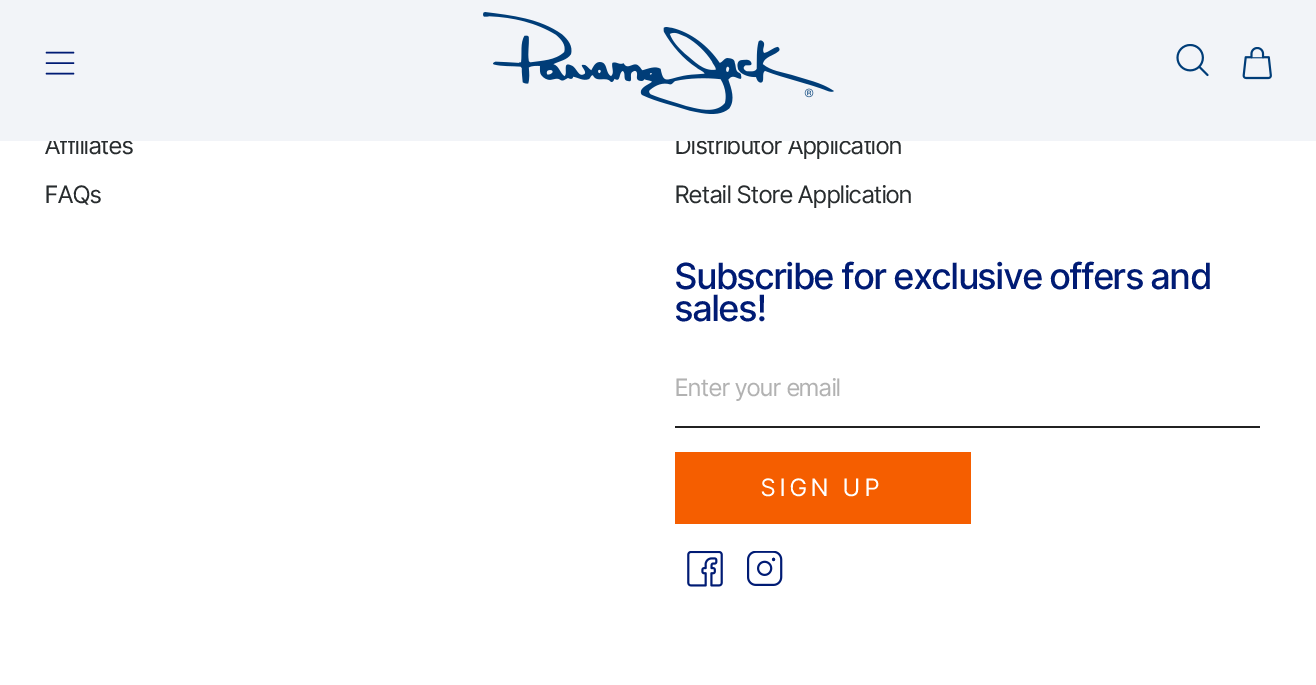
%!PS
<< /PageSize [1316 685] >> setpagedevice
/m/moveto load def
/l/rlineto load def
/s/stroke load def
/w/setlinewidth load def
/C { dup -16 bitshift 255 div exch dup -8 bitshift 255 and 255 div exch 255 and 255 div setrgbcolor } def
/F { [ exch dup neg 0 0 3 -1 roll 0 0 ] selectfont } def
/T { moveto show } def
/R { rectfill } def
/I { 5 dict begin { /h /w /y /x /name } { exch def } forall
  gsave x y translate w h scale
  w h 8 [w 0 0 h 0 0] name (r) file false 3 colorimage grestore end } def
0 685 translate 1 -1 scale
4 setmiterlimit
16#FFFFFF C
0 0 1316 685 R
/InterTight-Regular 24 F
16#282C2E C
(Affiliates) 45 154 T
(Distributor Application) 675 154 T
16#F2F4F8 C
0 0 1316 141 R
16#001B74 C
1.5 w
1 setlinecap
1 setlinejoin
46.5 52.5 m 27 0 l 46.5 63 m 27 0 l 46.5 73.5 m 27 0 l s
(1.rgb) 483 12 351 102 I
(2.rgb) 1176 44 33 33 I
(3.rgb) 1242 47 30 33 I
16#282C2E C
(FAQs) 45 203 T
(Retail Store Application) 675 203 T
/InterTight-Medium 36 F
16#001B74 C
(Subscribe for exclusive offers and) 675 289 T
(sales!) 675 321 T
16#212121 C
675 426 585 2 R
/InterTight-Regular 24 F
16#B2B2B2 C
(Enter your email) 675 396 T
16#F55E00 C
675 452 296 72 R
16#FFFFFF C
761 496 m 4.75 0 (SIGN UP) ashow
(4.rgb) 687 551 36 36 I
(5.rgb) 747 551 36 35 I
showpage
